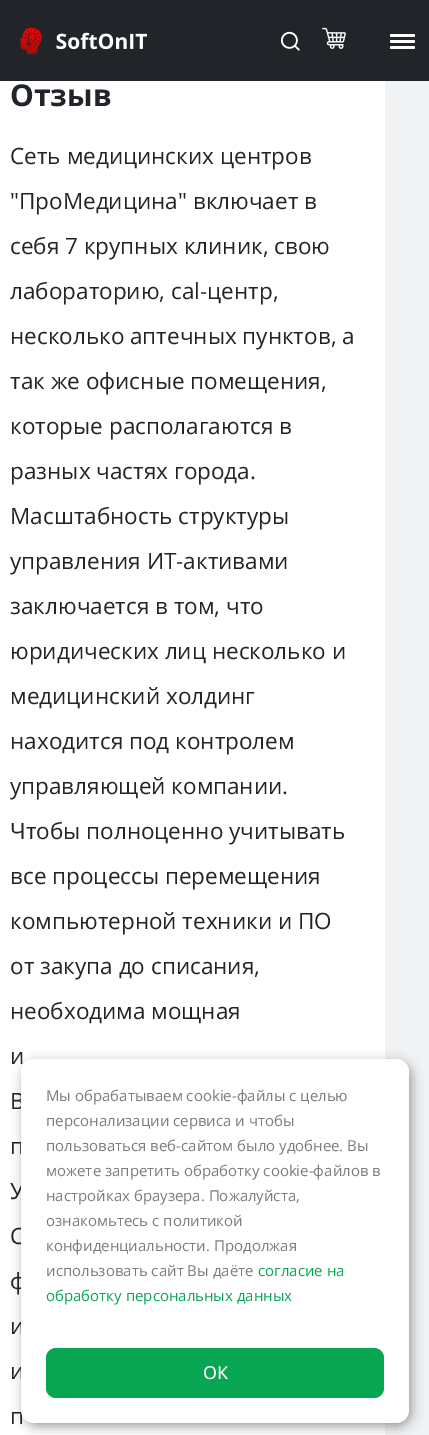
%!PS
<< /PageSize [429 1435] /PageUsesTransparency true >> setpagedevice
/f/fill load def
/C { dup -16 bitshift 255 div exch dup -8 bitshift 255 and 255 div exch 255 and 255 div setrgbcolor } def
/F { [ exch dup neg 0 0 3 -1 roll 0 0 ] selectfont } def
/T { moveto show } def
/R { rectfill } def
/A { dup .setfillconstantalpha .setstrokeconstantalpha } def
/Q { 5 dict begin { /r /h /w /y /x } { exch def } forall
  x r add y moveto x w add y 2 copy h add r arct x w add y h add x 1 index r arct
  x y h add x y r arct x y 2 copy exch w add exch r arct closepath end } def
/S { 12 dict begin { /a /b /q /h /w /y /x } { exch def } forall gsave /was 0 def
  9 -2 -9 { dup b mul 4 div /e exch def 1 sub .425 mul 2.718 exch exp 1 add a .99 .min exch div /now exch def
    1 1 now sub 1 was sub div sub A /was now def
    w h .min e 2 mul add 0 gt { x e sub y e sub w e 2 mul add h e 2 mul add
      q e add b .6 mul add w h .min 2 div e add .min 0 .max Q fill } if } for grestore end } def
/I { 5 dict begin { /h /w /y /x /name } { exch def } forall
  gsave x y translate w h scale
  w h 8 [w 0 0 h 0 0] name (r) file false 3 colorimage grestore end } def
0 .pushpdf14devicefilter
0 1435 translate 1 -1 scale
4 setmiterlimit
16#F0F2F4 C
0 0 429 1435 R
16#212529 C
0 0 429 81 R
(1.rgb) 19 27 128 27 I
(2.rgb) 280 31 20 20 I
(3.rgb) 322 27 24 22 I
16#FFFFFF C
390 34 25 3 1.5 Q f
390 40 25 3 1.5 Q f
390 46 25 3 1.5 Q f
0 81 385 1354 R
/OpenSans-Bold 30 F
16#212529 C
(Отзыв) 10 106 T
/OpenSans-Regular 22.5 F
(Сеть медицинских центров) 10 164 T
("ПроМедицина" включает в) 10 209 T
(себя 7 крупных клиник, свою) 10 254 T
(лабораторию, cal-центр,) 10 299 T
(несколько аптечных пунктов, а) 10 344 T
(так же офисные помещения,) 10 389 T
(которые располагаются в) 10 434 T
(разных частях города.) 10 479 T
(Масштабность структуры) 10 524 T
(управления ИТ-активами) 10 569 T
(заключается в том, что) 10 614 T
(юридических лиц несколько и) 10 659 T
(медицинский холдинг) 10 704 T
(находится под контролем) 10 749 T
(управляющей компании.) 10 794 T
(Чтобы полноценно учитывать) 10 839 T
(все процессы перемещения) 10 884 T
(компьютерной техники и ПО) 10 929 T
(от закупа до списания,) 10 974 T
(необходима мощная) 10 1019 T
(и) 10 1064 T
(В) 10 1109 T
(п) 10 1154 T
(У) 10 1199 T
(С) 10 1244 T
(ф) 10 1289 T
(и) 10 1334 T
(и) 10 1379 T
(п) 10 1424 T
16#000000 C
24 1063 387 363 13 6 .4 S
16#FFFFFF C
21 1059 388 364 13 Q f
/OpenSans-Regular 15 F
16#7C7C7C C
(Мы обрабатываем cookie-файлы с целью) 46 1101 T
(персонализации сервиса и чтобы) 46 1126 T
(пользоваться веб-сайтом было удобнее. Вы) 46 1151 T
(можете запретить обработку cookie-файлов в) 46 1176 T
(настройках браузера. Пожалуйста,) 46 1201 T
(ознакомьтесь с политикой) 46 1226 T
(конфиденциальности. Продолжая) 46 1251 T
(использовать сайт Вы даёте) 46 1276 T
16#08A652 C
(согласие на) 258 1276 T
(обработку персональных данных) 46 1301 T
46 1348 338 50 10 Q f
/OpenSans-Medium 18 F
16#FFFFFF C
(ОК) 203 1379 T
.poppdf14devicefilter showpage
